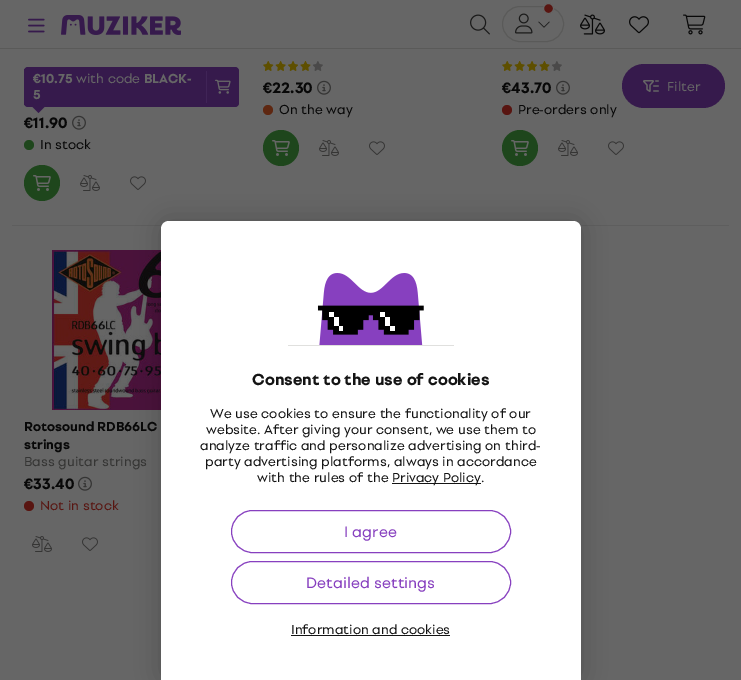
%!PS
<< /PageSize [741 680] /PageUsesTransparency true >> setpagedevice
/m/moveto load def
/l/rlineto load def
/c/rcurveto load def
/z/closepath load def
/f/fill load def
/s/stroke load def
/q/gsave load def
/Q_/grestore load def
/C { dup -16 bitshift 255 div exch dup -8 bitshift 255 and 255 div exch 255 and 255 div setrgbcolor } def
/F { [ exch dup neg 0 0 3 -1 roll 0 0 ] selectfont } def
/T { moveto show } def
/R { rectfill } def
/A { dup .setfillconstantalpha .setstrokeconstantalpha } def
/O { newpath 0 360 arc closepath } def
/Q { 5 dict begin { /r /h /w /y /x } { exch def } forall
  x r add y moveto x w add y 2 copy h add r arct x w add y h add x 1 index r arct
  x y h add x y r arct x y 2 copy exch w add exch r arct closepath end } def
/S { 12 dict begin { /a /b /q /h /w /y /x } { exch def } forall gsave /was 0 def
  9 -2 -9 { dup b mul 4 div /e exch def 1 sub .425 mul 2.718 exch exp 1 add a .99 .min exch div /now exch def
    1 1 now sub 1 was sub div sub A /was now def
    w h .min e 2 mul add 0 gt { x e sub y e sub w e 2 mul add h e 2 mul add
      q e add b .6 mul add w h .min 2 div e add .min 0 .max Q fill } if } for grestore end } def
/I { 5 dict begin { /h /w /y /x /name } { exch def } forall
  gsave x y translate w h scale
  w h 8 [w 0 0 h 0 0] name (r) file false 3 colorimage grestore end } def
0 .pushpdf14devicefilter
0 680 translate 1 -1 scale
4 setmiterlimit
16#666666 C
0 0 741 680 R
(1.rgb) 28 18 17 15 I
(2.rgb) 61 15 120 20 I
(3.rgb) 470 14 20 21 I
16#5A5A59 C
502.5 6.5 61 35 17.5 Q s
16#581511 C
548.5 8.5 5 O q f Q_
16#666666 C
s
(4.rgb) 515 13 18 21 I
(5.rgb) 538 21 12 7 I
(6.rgb) 580 14 25 21 I
(7.rgb) 629 16 20 18 I
(8.rgb) 683 14 23 21 I
16#5A5A59 C
0 48 741 1 R
16#5E5E5E C
12 225 151 1 R
16#361A4C C
24 67 215 40 4 Q f
24 69 1 36 R
16#402457 C
206 71 1 32 R
/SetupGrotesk-Bold 13 F
16#666666 C
(€10.75) 33 83 T
/SetupGrotesk-Regular 13 F
(with code) 76 83 T
/SetupGrotesk-Bold 13 F
(BLACK-) 144 83 T
(5) 33 99 T
(9.rgb) 215 79 16 15 I
16#361A4C C
38.5 100 m 6.5 6.5 l -6.5 6.5 l -6.5 -6.5 l z f
/SetupGrotesk-Bold 15 F
16#080808 C
(€11.90) 24 128 T
(10.rgb) 72 115 14 15 I
16#1E461C C
29 145 5 O f
/SetupGrotesk-Regular 13 F
16#080808 C
(In stock) 40 149 T
16#1E461C C
42 183 18 O f
(11.rgb) 33 175 18 16 I
(12.rgb) 80 175 20 16 I
(13.rgb) 130 176 16 14 I
(14.rgb) 263 61 60 10 I
/SetupGrotesk-Bold 15 F
16#080808 C
(€22.30) 263 93 T
(10.rgb) 317 80 14 15 I
16#5E2711 C
268 110 5 O f
/SetupGrotesk-Regular 13 F
16#080808 C
(On the way) 279 114 T
16#1E461C C
281 148 18 O f
(11.rgb) 272 140 18 16 I
(12.rgb) 319 140 20 16 I
(13.rgb) 369 141 16 14 I
16#5E5E5E C
579 225 150 1 R
(15.rgb) 502 61 60 10 I
/SetupGrotesk-Bold 15 F
16#080808 C
(€43.70) 502 93 T
(10.rgb) 556 80 14 15 I
16#581511 C
507 110 5 O f
/SetupGrotesk-Regular 13 F
16#080808 C
(Pre-orders only) 518 114 T
16#1E461C C
520 148 18 O f
(11.rgb) 511 140 18 16 I
(12.rgb) 558 140 20 16 I
(13.rgb) 608 141 16 14 I
(16.rgb) 52 250 109 160 I
/SetupGrotesk-Bold 13 F
16#080808 C
(Rotosound RDB66LC) 24 431 T
(strings) 24 449 T
/SetupGrotesk-Regular 13 F
16#353534 C
(Bass guitar strings) 24 466 T
/SetupGrotesk-Bold 15 F
16#080808 C
(€33.40) 24 489 T
(10.rgb) 78 476 14 15 I
16#581511 C
29 506 5 O f
/SetupGrotesk-Regular 13 F
(Not in stock) 40 510 T
(12.rgb) 32 536 20 16 I
(13.rgb) 82 537 16 14 I
16#361A4C C
622 64 103 44 22 Q f
(17.rgb) 643 80 16 12 I
16#666666 C
(Filter) 667 91 T
16#000000 C
161 222 420 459 8 12.5 .2 S
16#FFFFFF C
169 221 m 404 0 l 4.5 0 8 3.5 8 8 c 0 451 l -420 0 l 0 -451 l 0 -4.5 3.5 -8 8 -8 c z f
16#E0E0DE C
288 345 166 1 R
(18.rgb) 319 273 104 72 I
(19.rgb) 317 305 107 30 I
/SetupGrotesk-Bold 16 F
16#141414 C
(Consent to the use of cookies) 252 385 T
/SetupGrotesk-Regular 13 F
(We use cookies to ensure the functionality of our) 210 418 T
(website. After giving your consent, we use them to) 206 434 T
(analyze traffic and personalize advertising on third-) 200 450 T
(party advertising platforms, always in accordance) 205 466 T
(with the rules of the) 257 482 T
392 483 89 1 R
(Privacy Policy.) 392 482 T
16#8740BF C
231.5 510.5 279 42 21 Q s
/SetupGrotesk-Regular 15 F
(I agree) 344 537 T
231.5 561.5 279 42 21 Q s
(Detailed settings) 306 588 T
/SetupGrotesk-Regular 13 F
16#141414 C
(Information and cookies) 291 634 T
291 635 159 1 R
.poppdf14devicefilter showpage
